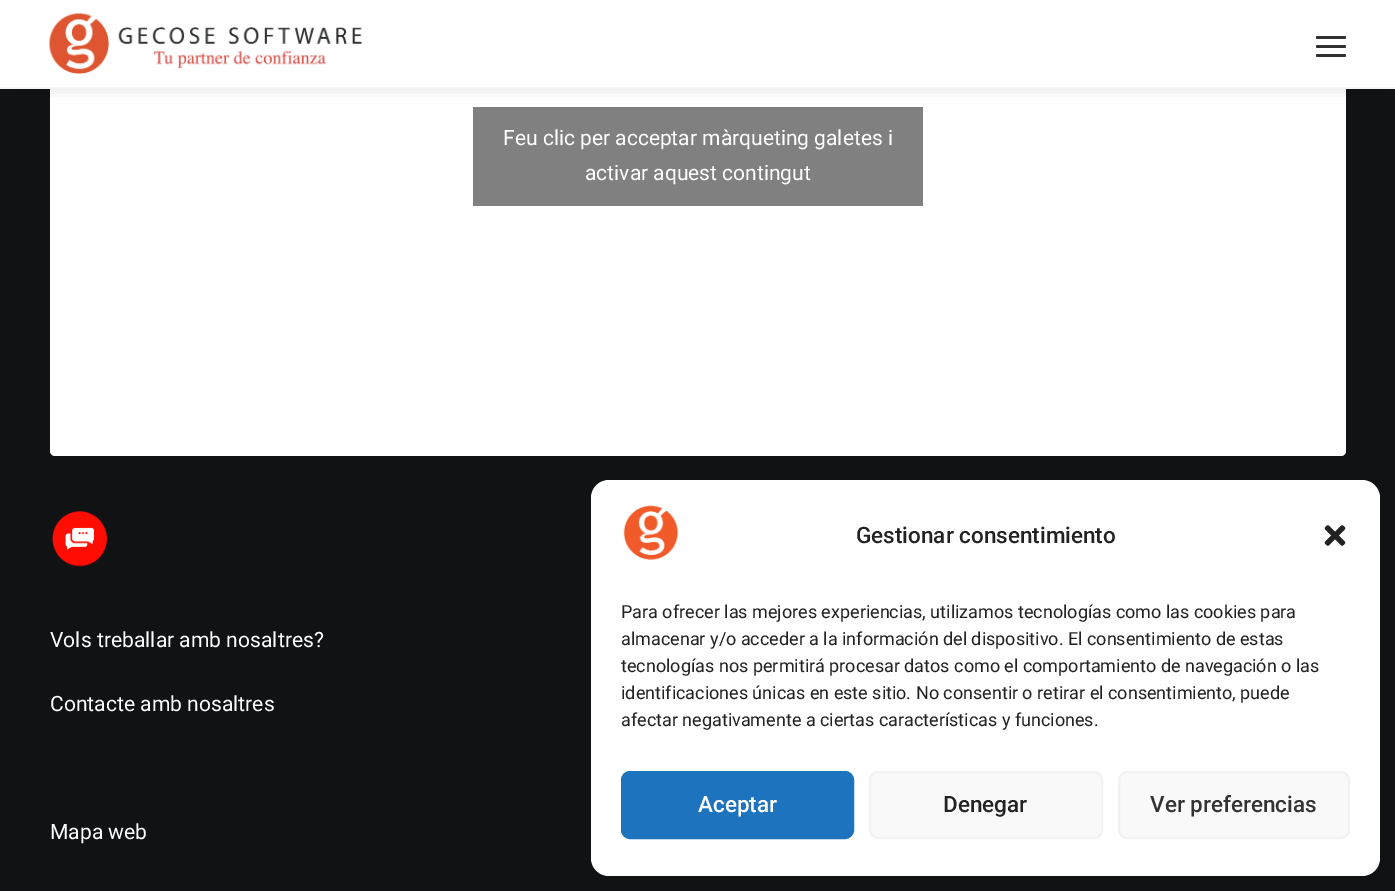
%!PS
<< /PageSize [1395 891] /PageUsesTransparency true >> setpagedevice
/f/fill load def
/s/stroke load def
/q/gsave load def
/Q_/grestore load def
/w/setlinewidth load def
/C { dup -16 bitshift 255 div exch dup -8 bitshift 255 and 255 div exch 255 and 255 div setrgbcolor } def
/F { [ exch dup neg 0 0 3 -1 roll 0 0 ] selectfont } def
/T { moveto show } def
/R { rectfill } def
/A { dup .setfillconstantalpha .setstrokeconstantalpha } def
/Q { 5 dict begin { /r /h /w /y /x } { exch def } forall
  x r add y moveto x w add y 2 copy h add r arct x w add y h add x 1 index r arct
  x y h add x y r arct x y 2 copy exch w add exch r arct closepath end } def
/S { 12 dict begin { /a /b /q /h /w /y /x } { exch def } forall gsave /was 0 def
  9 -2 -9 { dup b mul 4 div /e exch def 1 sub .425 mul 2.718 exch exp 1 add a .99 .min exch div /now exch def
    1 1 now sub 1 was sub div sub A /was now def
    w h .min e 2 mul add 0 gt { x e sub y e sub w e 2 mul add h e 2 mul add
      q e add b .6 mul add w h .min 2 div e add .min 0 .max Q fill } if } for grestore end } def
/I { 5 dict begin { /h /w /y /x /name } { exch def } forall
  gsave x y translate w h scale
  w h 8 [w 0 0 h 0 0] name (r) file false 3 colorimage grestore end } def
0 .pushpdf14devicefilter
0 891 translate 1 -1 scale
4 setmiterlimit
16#101213 C
0 0 1395 891 R
16#FFFFFF C
50 -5 1296 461 5 Q f
16#000000 C
11 21 1374 59 0 7.5 .6 S
16#FFFFFF C
0 0 1395 87 R
16#F4F4F4 C
0 87 1395 2 R
(1.rgb) 49 13 313 61 I
16#303133 C
1316 45 30 3 1.5 Q f
1316 36 30 3 1.5 Q f
1316 54 30 3 1.5 Q f
16#808080 C
473 107 450 99 R
/Roboto-Regular 21 F
16#FFFFFF C
(Feu clic per acceptar màrqueting galetes i) 503 145 T
(activar aquest contingut) 585 180 T
(2.rgb) 52 511 56 56 I
/Roboto-Regular 21.1 F
(Vols treballar amb nosaltres?) 50 647 T
(Contacte amb nosaltres) 50 711 T
(Mapa web) 50 839 T
591 480 789 396 18 Q f
(3.rgb) 623 505 56 55 I
/Roboto-Medium 22.5 F
16#222222 C
(Gestionar consentimiento) 856 543 T
(4.rgb) 1324 525 22 21 I
/Roboto-Regular 18 F
(Para ofrecer las mejores experiencias, utilizamos tecnologías como las cookies para) 621 618 T
(almacenar y/o acceder a la información del dispositivo. El consentimiento de estas) 621 645 T
(tecnologías nos permitirá procesar datos como el comportamiento de navegación o las) 621 672 T
(identificaciones únicas en este sitio. No consentir o retirar el consentimiento, puede) 621 699 T
(afectar negativamente a ciertas características y funciones.) 621 726 T
16#1E73BE C
622 772 231 66 8 Q q f Q_
2 w
s
/Roboto-Medium 22.5 F
16#FFFFFF C
(Aceptar) 698 812 T
16#F9F9F9 C
870 772 232 66 8 Q q f Q_
16#F2F2F2 C
s
16#222222 C
(Denegar) 943 812 T
16#F9F9F9 C
1119 772 230 66 8 Q q f Q_
16#F2F2F2 C
s
16#333333 C
(Ver preferencias) 1150 812 T
.poppdf14devicefilter showpage
